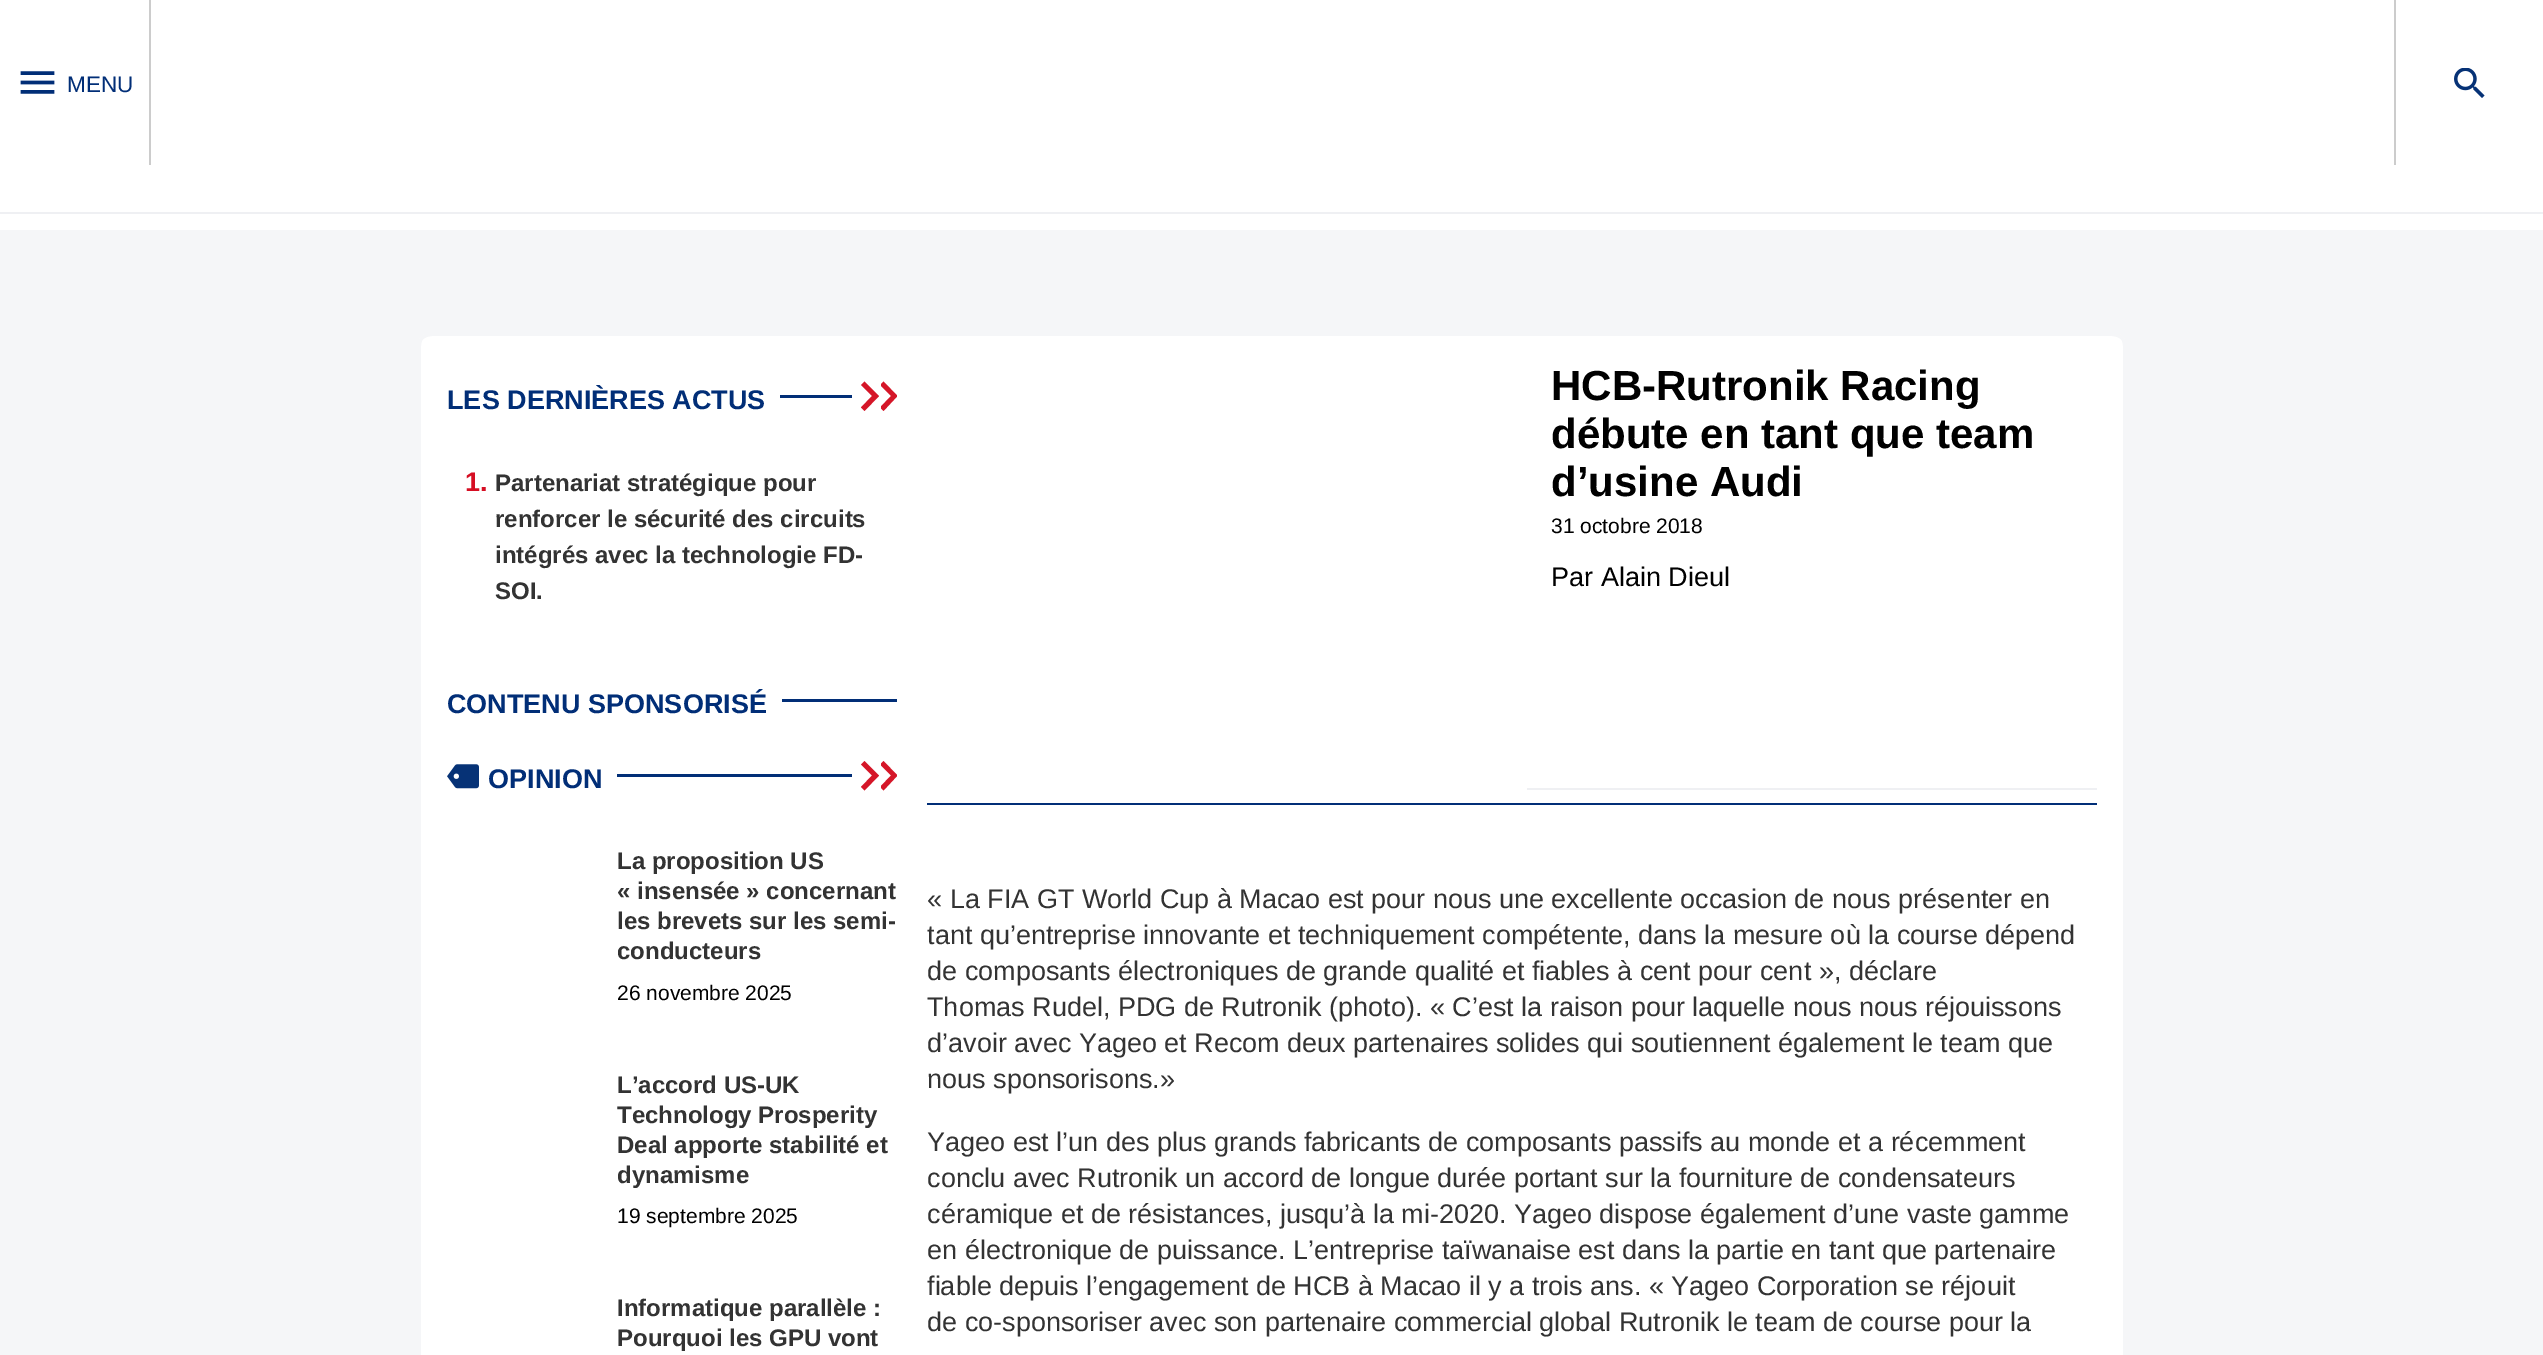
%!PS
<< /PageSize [2543 1355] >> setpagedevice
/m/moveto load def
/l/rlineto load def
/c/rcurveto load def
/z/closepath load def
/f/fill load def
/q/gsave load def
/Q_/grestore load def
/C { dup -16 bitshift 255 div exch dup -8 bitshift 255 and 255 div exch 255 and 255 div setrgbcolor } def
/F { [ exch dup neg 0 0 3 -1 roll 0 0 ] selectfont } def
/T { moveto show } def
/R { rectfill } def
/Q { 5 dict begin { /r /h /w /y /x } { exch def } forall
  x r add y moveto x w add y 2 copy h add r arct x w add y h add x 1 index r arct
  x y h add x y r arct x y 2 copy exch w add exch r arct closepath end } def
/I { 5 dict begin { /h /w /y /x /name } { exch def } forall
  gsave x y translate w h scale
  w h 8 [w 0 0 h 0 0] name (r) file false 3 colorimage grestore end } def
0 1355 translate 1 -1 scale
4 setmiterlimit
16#F5F6F8 C
0 0 2543 1355 R
16#FFFFFF C
0 0 2543 212 R
16#EFF0F3 C
0 212 2543 2 R
16#CCCCCC C
149 0 2 165 R
(1.rgb) 20 71 35 23 I
/LiberationSans-Regular 22.5 F
16#012E77 C
(MENU) 67 92 T
16#CCCCCC C
2394 0 2 165 R
(2.rgb) 2454 68 31 30 I
16#FFFFFF C
0 214 2543 16 R
417 332 1710 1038 15 Q f
16#F5F6F8 C
2108 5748 m 4 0 l 8 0 15 -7 15 -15 c 0 -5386 l 0 -8 -7 -15 -15 -15 c -4 0 l 9 0 15 6 15 14 c 0 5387 l 0 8 -6 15 -15 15 c z f
432 332 m -8 0 -15 7 -15 15 c 0 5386 l 0 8 7 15 15 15 c 4 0 l -9 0 -15 -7 -15 -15 c 0 -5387 l 0 -8 6 -14 15 -14 c z f
432 336 m 1680 0 l 8 0 15 7 15 15 c 0 -4 l 0 -8 -7 -15 -15 -15 c -1680 0 l -8 0 -15 7 -15 15 c 0 4 l 0 -8 7 -15 15 -15 c z f
/LiberationSans-Bold 27 F
16#012E77 C
(LES DERNIÈRES ACTUS) 447 409 T
780 395 72 3 R
16#D51628 C
864.5 381.5 m -3.5 3.5 l 11 11 l -11 11.5 l 3.5 3.5 l 14.5 -15 l z eofill
q
881 381 16 30 rectclip
883.5 381.5 m -3.5 3.5 l 11 11 l -11 11.5 l 3.5 3.5 l 14 -15 l z eofill
Q_
16#D60E23 C
(1.) 465 491 T
/LiberationSans-Bold 24 F
16#333333 C
(Partenariat stratégique pour) 495 491 T
(renforcer le sécurité des circuits) 495 527 T
(intégrés avec la technologie FD-) 495 563 T
(SOI.) 495 599 T
/LiberationSans-Bold 27 F
16#012E77 C
(CONTENU SPONSORISÉ) 447 713 T
782 699 115 3 R
(3.rgb) 447 764 32 25 I
(OPINION) 488 788 T
617 774 235 3 R
16#D51628 C
864.5 761 m -3.5 3.5 l 11 11 l -11 11.5 l 3.5 3.5 l 14.5 -15 l z eofill
q
881 761 16 30 rectclip
883.5 761 m -3.5 3.5 l 11 11 l -11 11.5 l 3.5 3.5 l 14 -15 l z eofill
Q_
/LiberationSans-Bold 24 F
16#333333 C
(La proposition US) 617 869 T
(« insensée » concernant) 617 899 T
(les brevets sur les semi-) 617 929 T
(conducteurs) 617 959 T
/LiberationSans-Regular 21 F
16#000000 C
(26 novembre 2025) 617 1000 T
/LiberationSans-Bold 24 F
16#333333 C
(L’accord US-UK) 617 1093 T
(Technology Prosperity) 617 1123 T
(Deal apporte stabilité et) 617 1153 T
(dynamisme) 617 1183 T
/LiberationSans-Regular 21 F
16#000000 C
(19 septembre 2025) 617 1223 T
/LiberationSans-Bold 24 F
16#333333 C
(Informatique parallèle :) 617 1316 T
(Pourquoi les GPU vont) 617 1346 T
16#EFF0F3 C
1527 788 570 2 R
/LiberationSans-Bold 42 F
16#000000 C
(HCB-Rutronik Racing) 1551 400 T
(débute en tant que team) 1551 448 T
(d’usine Audi) 1551 496 T
/LiberationSans-Regular 21 F
(31 octobre 2018) 1551 533 T
/LiberationSans-Regular 27 F
(Par Alain Dieul) 1551 586 T
16#012E77 C
927 803 1170 2 R
16#333333 C
(« La FIA GT World Cup à Macao est pour nous une excellente occasion de nous présenter en) 927 908 T
(tant qu’entreprise innovante et techniquement compétente, dans la mesure où la course dépend) 927 944 T
(de composants électroniques de grande qualité et fiables à cent pour cent », déclare) 927 980 T
(Thomas Rudel, PDG de Rutronik \(photo\). « C’est la raison pour laquelle nous nous réjouissons) 927 1016 T
(d’avoir avec Yageo et Recom deux partenaires solides qui soutiennent également le team que) 927 1052 T
(nous sponsorisons.») 927 1088 T
(Yageo est l’un des plus grands fabricants de composants passifs au monde et a récemment) 927 1151 T
(conclu avec Rutronik un accord de longue durée portant sur la fourniture de condensateurs) 927 1187 T
(céramique et de résistances, jusqu’à la mi-2020. Yageo dispose également d’une vaste gamme) 927 1223 T
(en électronique de puissance. L’entreprise taïwanaise est dans la partie en tant que partenaire) 927 1259 T
(fiable depuis l’engagement de HCB à Macao il y a trois ans. « Yageo Corporation se réjouit) 927 1295 T
(de co-sponsoriser avec son partenaire commercial global Rutronik le team de course pour la) 927 1331 T
showpage
